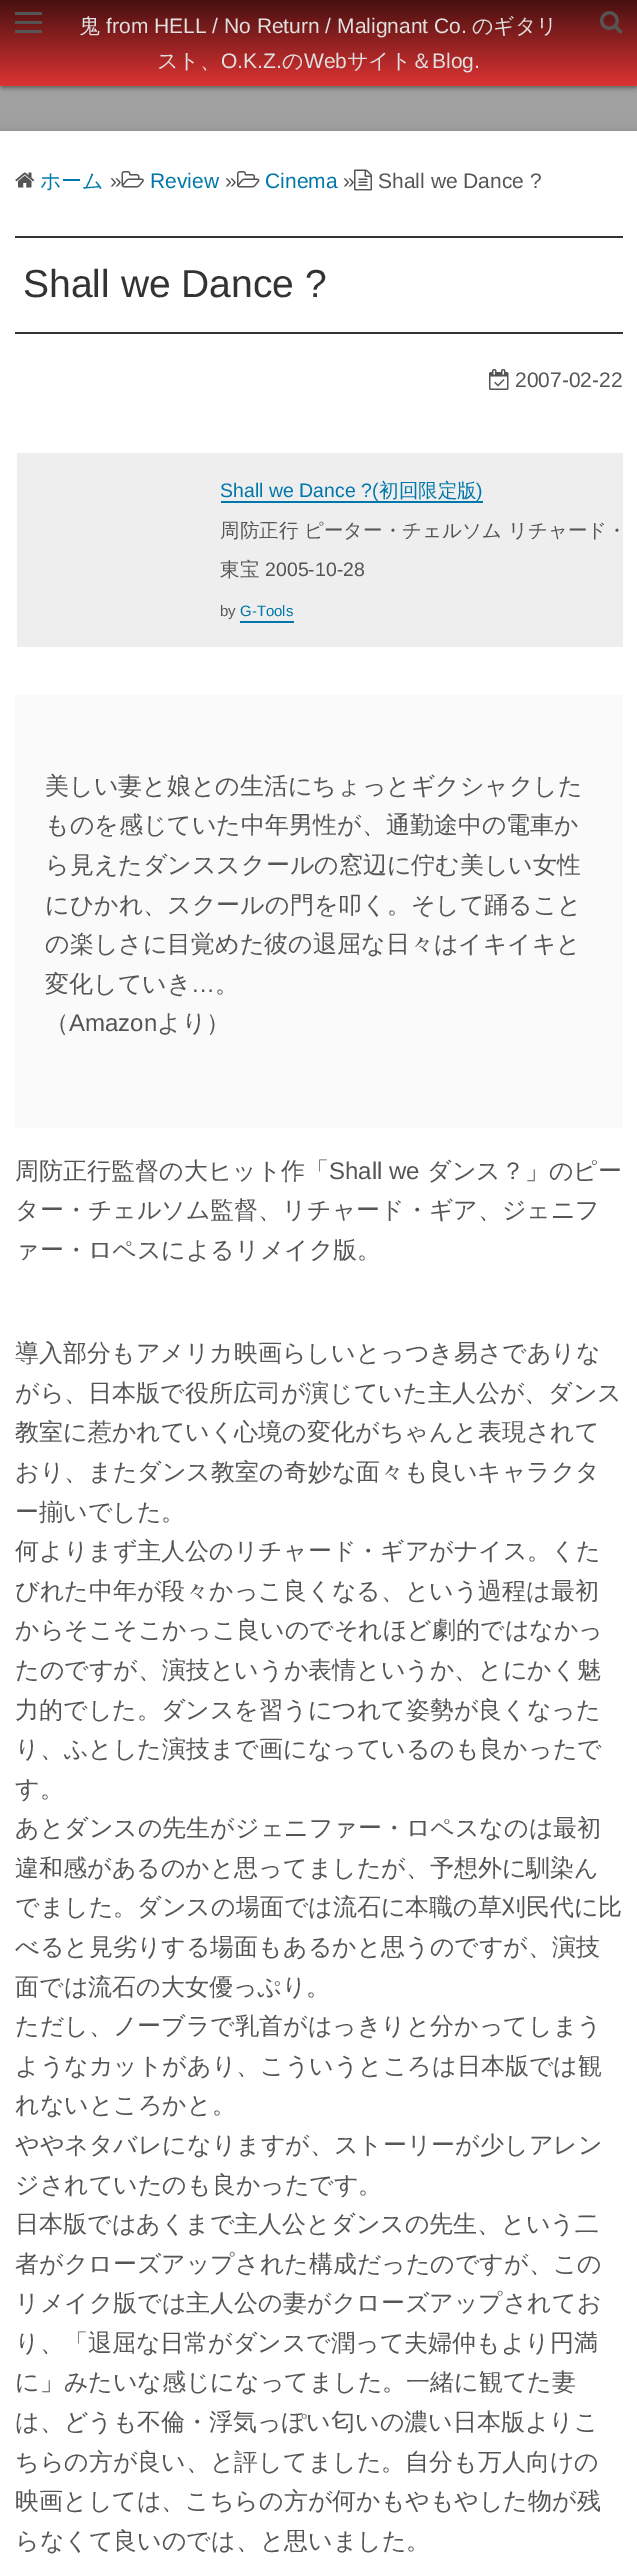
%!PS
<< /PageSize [637 2561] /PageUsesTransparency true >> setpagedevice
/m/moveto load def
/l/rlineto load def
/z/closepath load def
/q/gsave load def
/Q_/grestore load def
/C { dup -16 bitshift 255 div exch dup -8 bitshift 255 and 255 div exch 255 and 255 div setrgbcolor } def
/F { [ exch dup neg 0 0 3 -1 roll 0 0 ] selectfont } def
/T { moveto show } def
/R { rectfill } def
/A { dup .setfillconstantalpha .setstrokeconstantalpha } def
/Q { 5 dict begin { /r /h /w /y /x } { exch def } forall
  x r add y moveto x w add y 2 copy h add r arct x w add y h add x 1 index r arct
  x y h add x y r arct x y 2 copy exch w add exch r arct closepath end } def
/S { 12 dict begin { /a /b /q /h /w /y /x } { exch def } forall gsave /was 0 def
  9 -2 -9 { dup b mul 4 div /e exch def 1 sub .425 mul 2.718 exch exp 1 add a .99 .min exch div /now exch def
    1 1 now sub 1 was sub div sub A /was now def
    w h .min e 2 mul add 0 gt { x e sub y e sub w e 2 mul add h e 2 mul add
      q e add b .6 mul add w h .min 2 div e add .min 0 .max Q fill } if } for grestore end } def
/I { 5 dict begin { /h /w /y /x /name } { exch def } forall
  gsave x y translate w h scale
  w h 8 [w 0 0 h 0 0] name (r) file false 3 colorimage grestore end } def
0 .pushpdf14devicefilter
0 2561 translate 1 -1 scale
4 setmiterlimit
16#FFFFFF C
0 0 637 2561 R
q 0 83 m 637 0 l 0 48 l -637 0 l z clip newpath
<< /ShadingType 2 /ColorSpace /DeviceRGB /Coords [319 -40 319 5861] /Extend [true true] /Function << /FunctionType 2 /Domain [0 1] /C0 [.647 .647 .647] /C1 [0 0 0] /N 1 >> >> shfill Q_
16#000000 C
0 -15 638 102 3 4 .2 S
3 -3 632 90 0 1 .12 S
0 -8 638 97 3 1.5 .14 S
q 0 -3 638 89 3 Q clip newpath
<< /ShadingType 2 /ColorSpace /DeviceRGB /Coords [319 -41 319 86] /Extend [true true] /Function << /FunctionType 2 /Domain [0 1] /C0 [0 0 0] /C1 [.867 .2 .2] /N 1 >> >> shfill Q_
16#555555 C
15 21 27 3 R
15 12 27 3 R
15 30 27 3 R
/WenQuanYiZenHei-Medium 21 F
16#E0E0E0 C
(鬼) 79 33 T
/LiberationSans-Regular 21 F
(from HELL / No Return / Malignant Co.) 106 33 T
/WenQuanYiZenHei-Medium 21 F
(のギタリ) 472 33 T
(スト、) 157 68 T
/LiberationSans-Regular 21 F
(O.K.Z.) 221 68 T
/WenQuanYiZenHei-Medium 21 F
(の) 282 68 T
/LiberationSans-Regular 21 F
(Web) 304 68 T
/WenQuanYiZenHei-Medium 21 F
(サイト＆) 347 68 T
/LiberationSans-Regular 21 F
(Blog.) 432 68 T
(1.rgb) 600 11 23 23 I
16#000000 C
0 132 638 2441 0 4 .2 S
16#FFFFFF C
0 131 637 2430 R
(2.rgb) 15 172 20 16 I
/WenQuanYiZenHei-Medium 21 F
16#0077AA C
(ホーム) 40 188 T
/LiberationSans-Regular 21 F
16#555555 C
(») 110 188 T
(3.rgb) 121 171 23 17 I
16#0077AA C
(Review) 150 188 T
16#555555 C
(») 225 188 T
(4.rgb) 237 171 23 17 I
16#0077AA C
(Cinema) 265 188 T
16#555555 C
(») 343 188 T
(5.rgb) 354 169 18 22 I
(Shall we Dance ?) 378 188 T
16#333333 C
15 236 608 2 R
15 332 608 2 R
/LiberationSans-Regular 39 F
(Shall we Dance ?) 23 297 T
(6.rgb) 489 369 20 21 I
/LiberationSans-Regular 21 F
16#555555 C
(2007-02-22) 515 387 T
16#EEEEEE C
17 453 606 194 R
16#0077AA C
221 501 262 2 R
/LiberationSans-Regular 19.5 F
(Shall we Dance ?\() 220 497 T
/WenQuanYiZenHei-Medium 19.5 F
(初回限定版) 379 497 T
/LiberationSans-Regular 19.5 F
(\)) 476 497 T
/WenQuanYiZenHei-Medium 19.5 F
16#555555 C
(周防正行 ピーター・チェルソム リチャード・) 220 537 T
(東宝) 220 576 T
/LiberationSans-Regular 19.5 F
(2005-10-28) 265 576 T
/LiberationSans-Regular 15 F
(by) 220 616 T
16#0077AA C
240 621 54 2 R
(G-Tools) 240 616 T
16#FAFAFA C
15 695 608 433 R
/WenQuanYiZenHei-Medium 24 F
16#555555 C
(美しい妻と娘との生活にちょっとギクシャクした) 45 794 T
(ものを感じていた中年男性が、通勤途中の電車か) 45 833 T
(ら見えたダンススクールの窓辺に佇む美しい女性) 45 873 T
(にひかれ、スクールの門を叩く。そして踊ること) 45 913 T
(の楽しさに目覚めた彼の退屈な日々はイキイキと) 45 952 T
(変化していき) 45 992 T
/LiberationSans-Regular 24 F
(…) 191 992 T
/WenQuanYiZenHei-Medium 24 F
(。) 215 992 T
(（) 45 1031 T
/LiberationSans-Regular 24 F
(Amazon) 69 1031 T
/WenQuanYiZenHei-Medium 24 F
(より）) 157 1031 T
(周防正行監督の大ヒット作「) 15 1179 T
/LiberationSans-Regular 24 F
(Shall we) 329 1179 T
/WenQuanYiZenHei-Medium 24 F
(ダンス？」のピー) 427 1179 T
(ター・チェルソム監督、リチャード・ギア、ジェニフ) 15 1218 T
(ァー・ロペスによるリメイク版。) 15 1258 T
(導入部分もアメリカ映画らしいとっつき易さでありな) 15 1361 T
(がら、日本版で役所広司が演じていた主人公が、ダンス) 15 1401 T
(教室に惹かれていく心境の変化がちゃんと表現されて) 15 1440 T
(おり、またダンス教室の奇妙な面々も良いキャラクタ) 15 1480 T
(ー揃いでした。) 15 1520 T
(何よりまず主人公のリチャード・ギアがナイス。くた) 15 1559 T
(びれた中年が段々かっこ良くなる、という過程は最初) 15 1599 T
(からそこそこかっこ良いのでそれほど劇的ではなかっ) 15 1638 T
(たのですが、演技というか表情というか、とにかく魅) 15 1678 T
(力的でした。ダンスを習うにつれて姿勢が良くなった) 15 1718 T
(り、ふとした演技まで画になっているのも良かったで) 15 1757 T
(す。) 15 1797 T
(あとダンスの先生がジェニファー・ロペスなのは最初) 15 1836 T
(違和感があるのかと思ってましたが、予想外に馴染ん) 15 1876 T
(でました。ダンスの場面では流石に本職の草刈民代に比) 15 1915 T
(べると見劣りする場面もあるかと思うのですが、演技) 15 1955 T
(面では流石の大女優っぷり。) 15 1995 T
(ただし、ノーブラで乳首がはっきりと分かってしまう) 15 2034 T
(ようなカットがあり、こういうところは日本版では観) 15 2074 T
(れないところかと。) 15 2113 T
(ややネタバレになりますが、ストーリーが少しアレン) 15 2153 T
(ジされていたのも良かったです。) 15 2193 T
(日本版ではあくまで主人公とダンスの先生、という二) 15 2232 T
(者がクローズアップされた構成だったのですが、この) 15 2272 T
(リメイク版では主人公の妻がクローズアップされてお) 15 2311 T
(り、「退屈な日常がダンスで潤って夫婦仲もより円満) 15 2351 T
(に」みたいな感じになってました。一緒に観てた妻) 15 2390 T
(は、どうも不倫・浮気っぽい匂いの濃い日本版よりこ) 15 2430 T
(ちらの方が良い、と評してました。自分も万人向けの) 15 2470 T
(映画としては、こちらの方が何かもやもやした物が残) 15 2509 T
(らなくて良いのでは、と思いました。) 15 2549 T
.poppdf14devicefilter showpage
